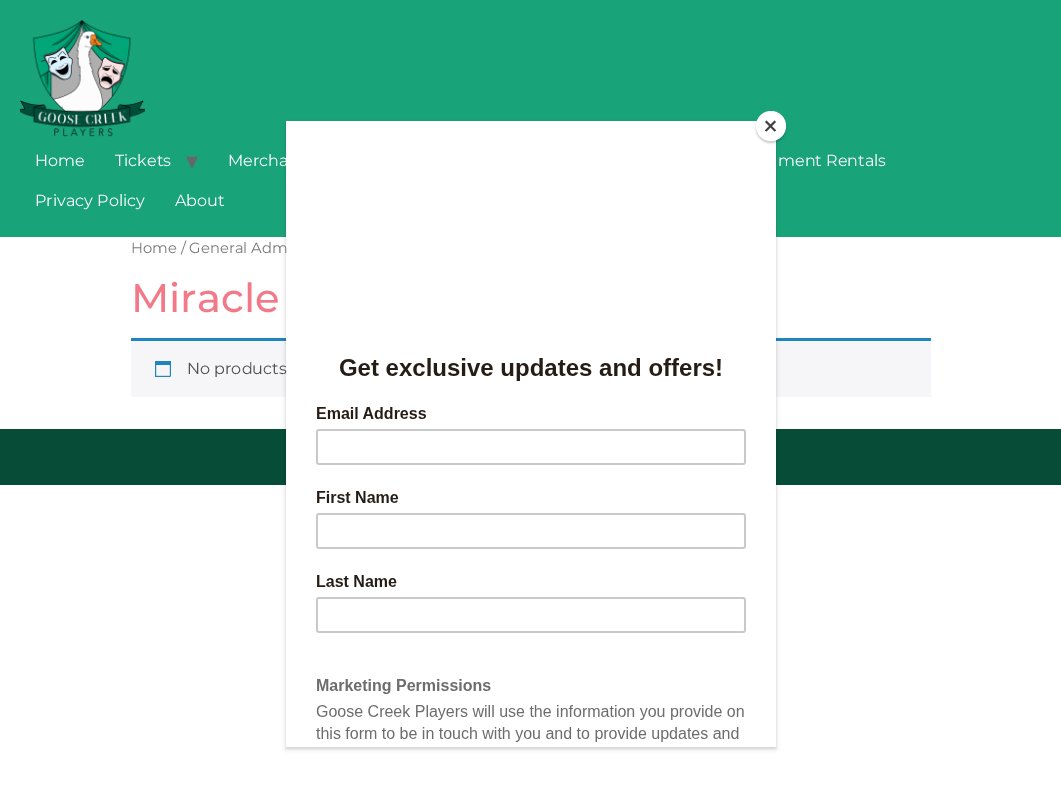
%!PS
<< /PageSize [1061 807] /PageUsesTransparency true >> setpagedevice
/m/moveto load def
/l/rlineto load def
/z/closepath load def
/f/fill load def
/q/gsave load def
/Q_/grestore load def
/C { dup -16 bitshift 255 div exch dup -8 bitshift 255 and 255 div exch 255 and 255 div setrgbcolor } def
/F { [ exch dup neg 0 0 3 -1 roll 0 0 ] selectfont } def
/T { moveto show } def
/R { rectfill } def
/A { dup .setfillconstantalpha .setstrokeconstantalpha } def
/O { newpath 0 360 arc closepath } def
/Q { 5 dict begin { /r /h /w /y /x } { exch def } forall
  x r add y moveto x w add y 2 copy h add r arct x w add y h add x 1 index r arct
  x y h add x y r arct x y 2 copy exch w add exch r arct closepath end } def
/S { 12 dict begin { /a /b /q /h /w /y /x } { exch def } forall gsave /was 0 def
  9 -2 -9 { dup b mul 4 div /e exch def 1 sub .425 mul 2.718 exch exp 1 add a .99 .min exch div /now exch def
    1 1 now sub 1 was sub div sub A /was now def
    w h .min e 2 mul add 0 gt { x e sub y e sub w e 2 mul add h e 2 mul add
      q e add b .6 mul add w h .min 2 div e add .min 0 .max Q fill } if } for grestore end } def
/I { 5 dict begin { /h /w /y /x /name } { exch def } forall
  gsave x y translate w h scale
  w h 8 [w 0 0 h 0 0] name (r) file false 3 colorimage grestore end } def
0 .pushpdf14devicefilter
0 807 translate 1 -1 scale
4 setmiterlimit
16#FFFFFF C
0 0 1061 807 R
16#18A379 C
0 0 1061 237 R
16#F6F5F8 C
131 341 800 56 R
16#1E85BE C
131 338 800 3 R
16#064C37 C
0 429 1061 56 R
q
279 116 m 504 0 l 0 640 l -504 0 l z 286 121 m 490 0 l 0 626 l -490 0 l z eoclip newpath
16#000000 C
286 123 490 626 0 2 .2 S
Q_
/Montserrat-Regular 16 F
16#FFFFFF C
(Mercha) 228 166 T
(1.rgb) 286 121 490 621 I
16#000000 C
756 113 30 30 15 1 .2 S
16#FFFFFF C
771 126 15 O f
16#414141 C
774.5 120.5 m 1.5 1.5 l -9.5 9.5 l -1.5 -1 l z f
765 122 m 1.5 -1.5 l 9.5 10 l -1.5 1 l z f
(2.rgb) 20 20 125 117 I
16#FFFFFF C
(Home) 35 166 T
(Tickets) 115 166 T
/DejaVuSans-Regular 24 F
16#666666 C
(▾) 186 169 T
/Montserrat-Regular 16 F
16#FFFFFF C
(ment Rentals) 778 166 T
(Privacy Policy) 35 206 T
(About) 175 206 T
/Montserrat-Regular 14.75 F
16#767676 C
(Home / General Adm) 131 253 T
/Montserrat-Medium 40 F
16#F17988 C
(Miracle) 131 312 T
(3.rgb) 155 361 16 16 I
/Montserrat-Regular 16 F
16#515151 C
(No products) 187 374 T
.poppdf14devicefilter showpage
